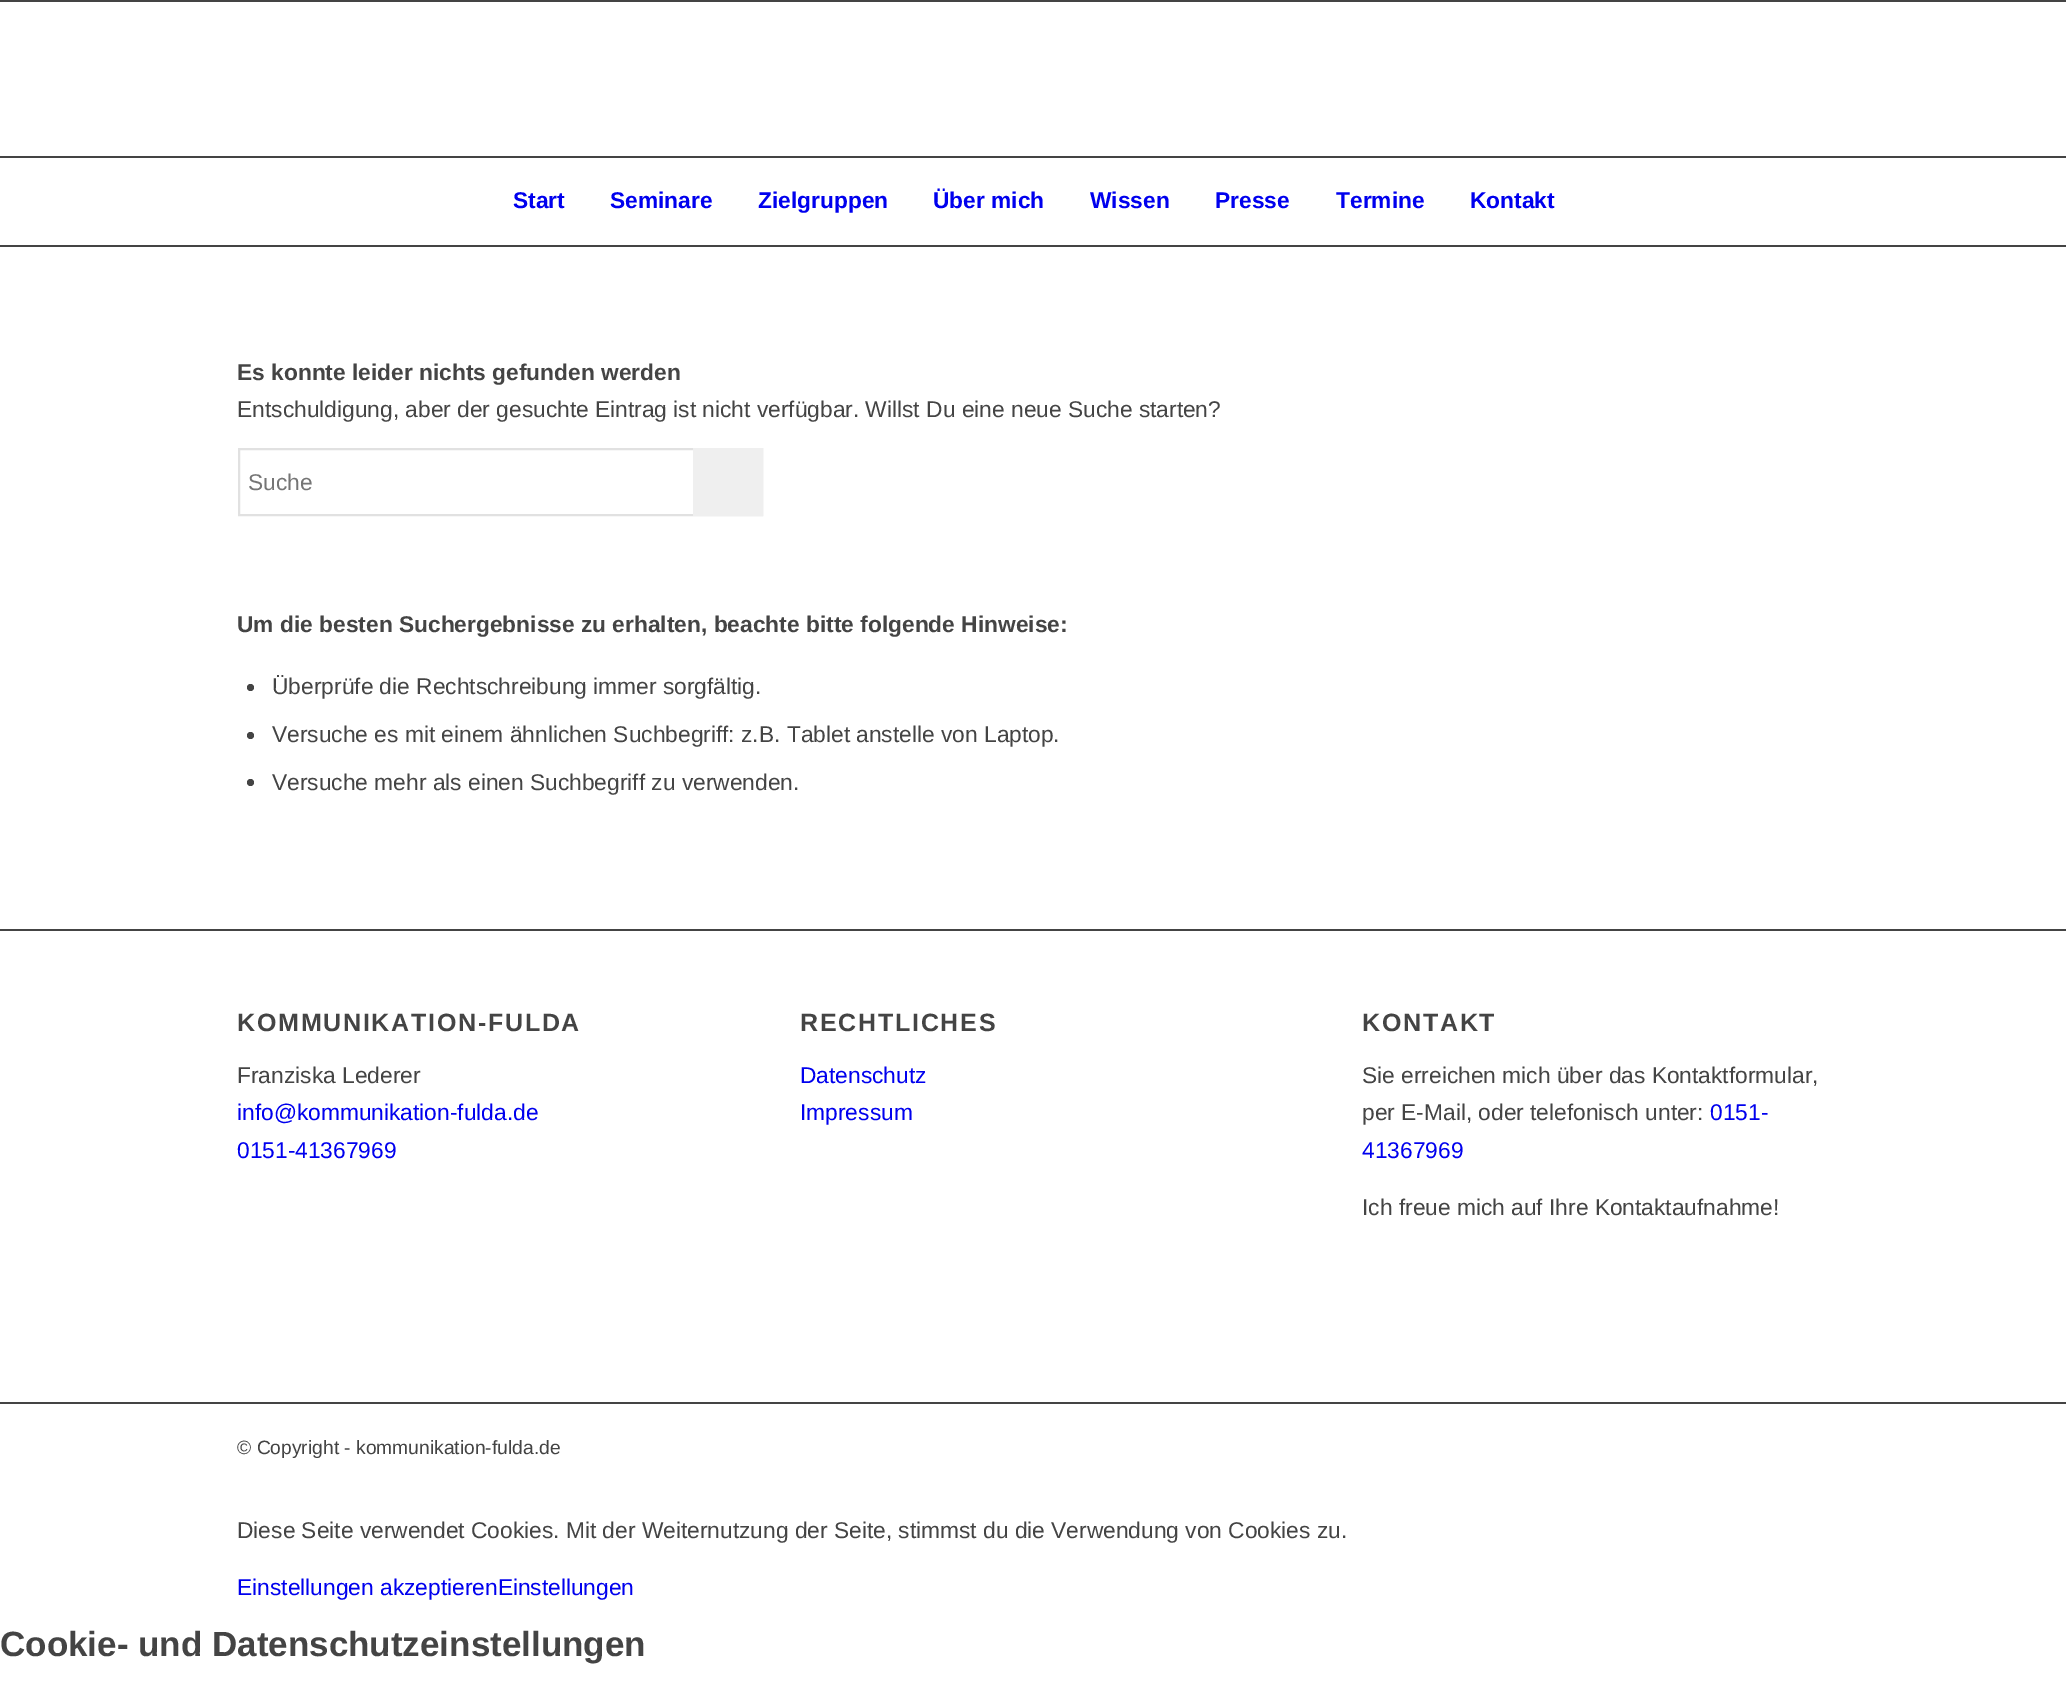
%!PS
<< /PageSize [2066 1687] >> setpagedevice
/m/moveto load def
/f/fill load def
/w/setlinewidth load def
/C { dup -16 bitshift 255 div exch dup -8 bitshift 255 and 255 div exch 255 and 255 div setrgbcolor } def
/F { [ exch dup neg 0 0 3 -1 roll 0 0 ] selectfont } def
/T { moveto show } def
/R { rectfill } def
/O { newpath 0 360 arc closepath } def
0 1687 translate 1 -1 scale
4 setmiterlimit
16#FFFFFF C
0 0 2066 1687 R
16#444444 C
0 0 2066 2 R
0 156 2066 2 R
/LiberationSans-Bold 22.75 F
16#0000EE C
(Start) 513 208 T
(Seminare) 610 208 T
(Zielgruppen) 758 208 T
(Über mich) 933 208 T
(Wissen) 1090 208 T
(Presse) 1215 208 T
(Termine) 1336 208 T
(Kontakt) 1470 208 T
16#444444 C
0 245 2066 2 R
(Es konnte leider nichts gefunden werden) 237 380 T
/LiberationSans-Regular 22.75 F
(Entschuldigung, aber der gesuchte Eintrag ist nicht verfügbar. Willst Du eine neue Suche starten?) 237 417 T
16#E1E1E1 C
2 w
239 449 523 66 rectstroke
16#757575 C
(Suche) 248 490 T
16#EFEFEF C
693 448 70 68 R
/LiberationSans-Bold 22.75 F
16#444444 C
(Um die besten Suchergebnisse zu erhalten, beachte bitte folgende Hinweise:) 237 632 T
250.5 687.5 3.5 O f
/LiberationSans-Regular 22.75 F
(Überprüfe die Rechtschreibung immer sorgfältig.) 272 694 T
250.5 735.5 3.5 O f
(Versuche es mit einem ähnlichen Suchbegriff: z.B. Tablet anstelle von Laptop.) 272 742 T
250.5 782.5 3.5 O f
(Versuche mehr als einen Suchbegriff zu verwenden.) 272 790 T
0 929 2066 2 R
/LiberationSans-Bold 25 F
237 1031 m 1.75 0 (KOMMUNIKATION-FULDA) ashow
/LiberationSans-Regular 22.75 F
(Franziska Lederer) 237 1083 T
16#0000EE C
(info@kommunikation-fulda.de) 237 1120 T
(0151-41367969) 237 1158 T
/LiberationSans-Bold 25 F
16#444444 C
800 1031 m 1.75 0 (RECHTLICHES) ashow
/LiberationSans-Regular 22.75 F
16#0000EE C
(Datenschutz) 800 1083 T
(Impressum) 800 1120 T
/LiberationSans-Bold 25 F
16#444444 C
1362 1031 m 1.75 0 (KONTAKT) ashow
/LiberationSans-Regular 22.75 F
(Sie erreichen mich über das Kontaktformular,) 1362 1083 T
(per E-Mail, oder telefonisch unter:) 1362 1120 T
16#0000EE C
(0151-) 1710 1120 T
(41367969) 1362 1158 T
16#444444 C
(Ich freue mich auf Ihre Kontaktaufnahme!) 1362 1215 T
0 1402 2066 2 R
/LiberationSans-Regular 19.25 F
(© Copyright - kommunikation-fulda.de) 237 1454 T
/LiberationSans-Regular 22.75 F
(Diese Seite verwendet Cookies. Mit der Weiternutzung der Seite, stimmst du die Verwendung von Cookies zu.) 237 1538 T
16#0000EE C
(Einstellungen akzeptierenEinstellungen) 237 1595 T
/LiberationSans-Bold 35 F
16#444444 C
(Cookie- und Datenschutzeinstellungen) 0 1656 T
showpage
